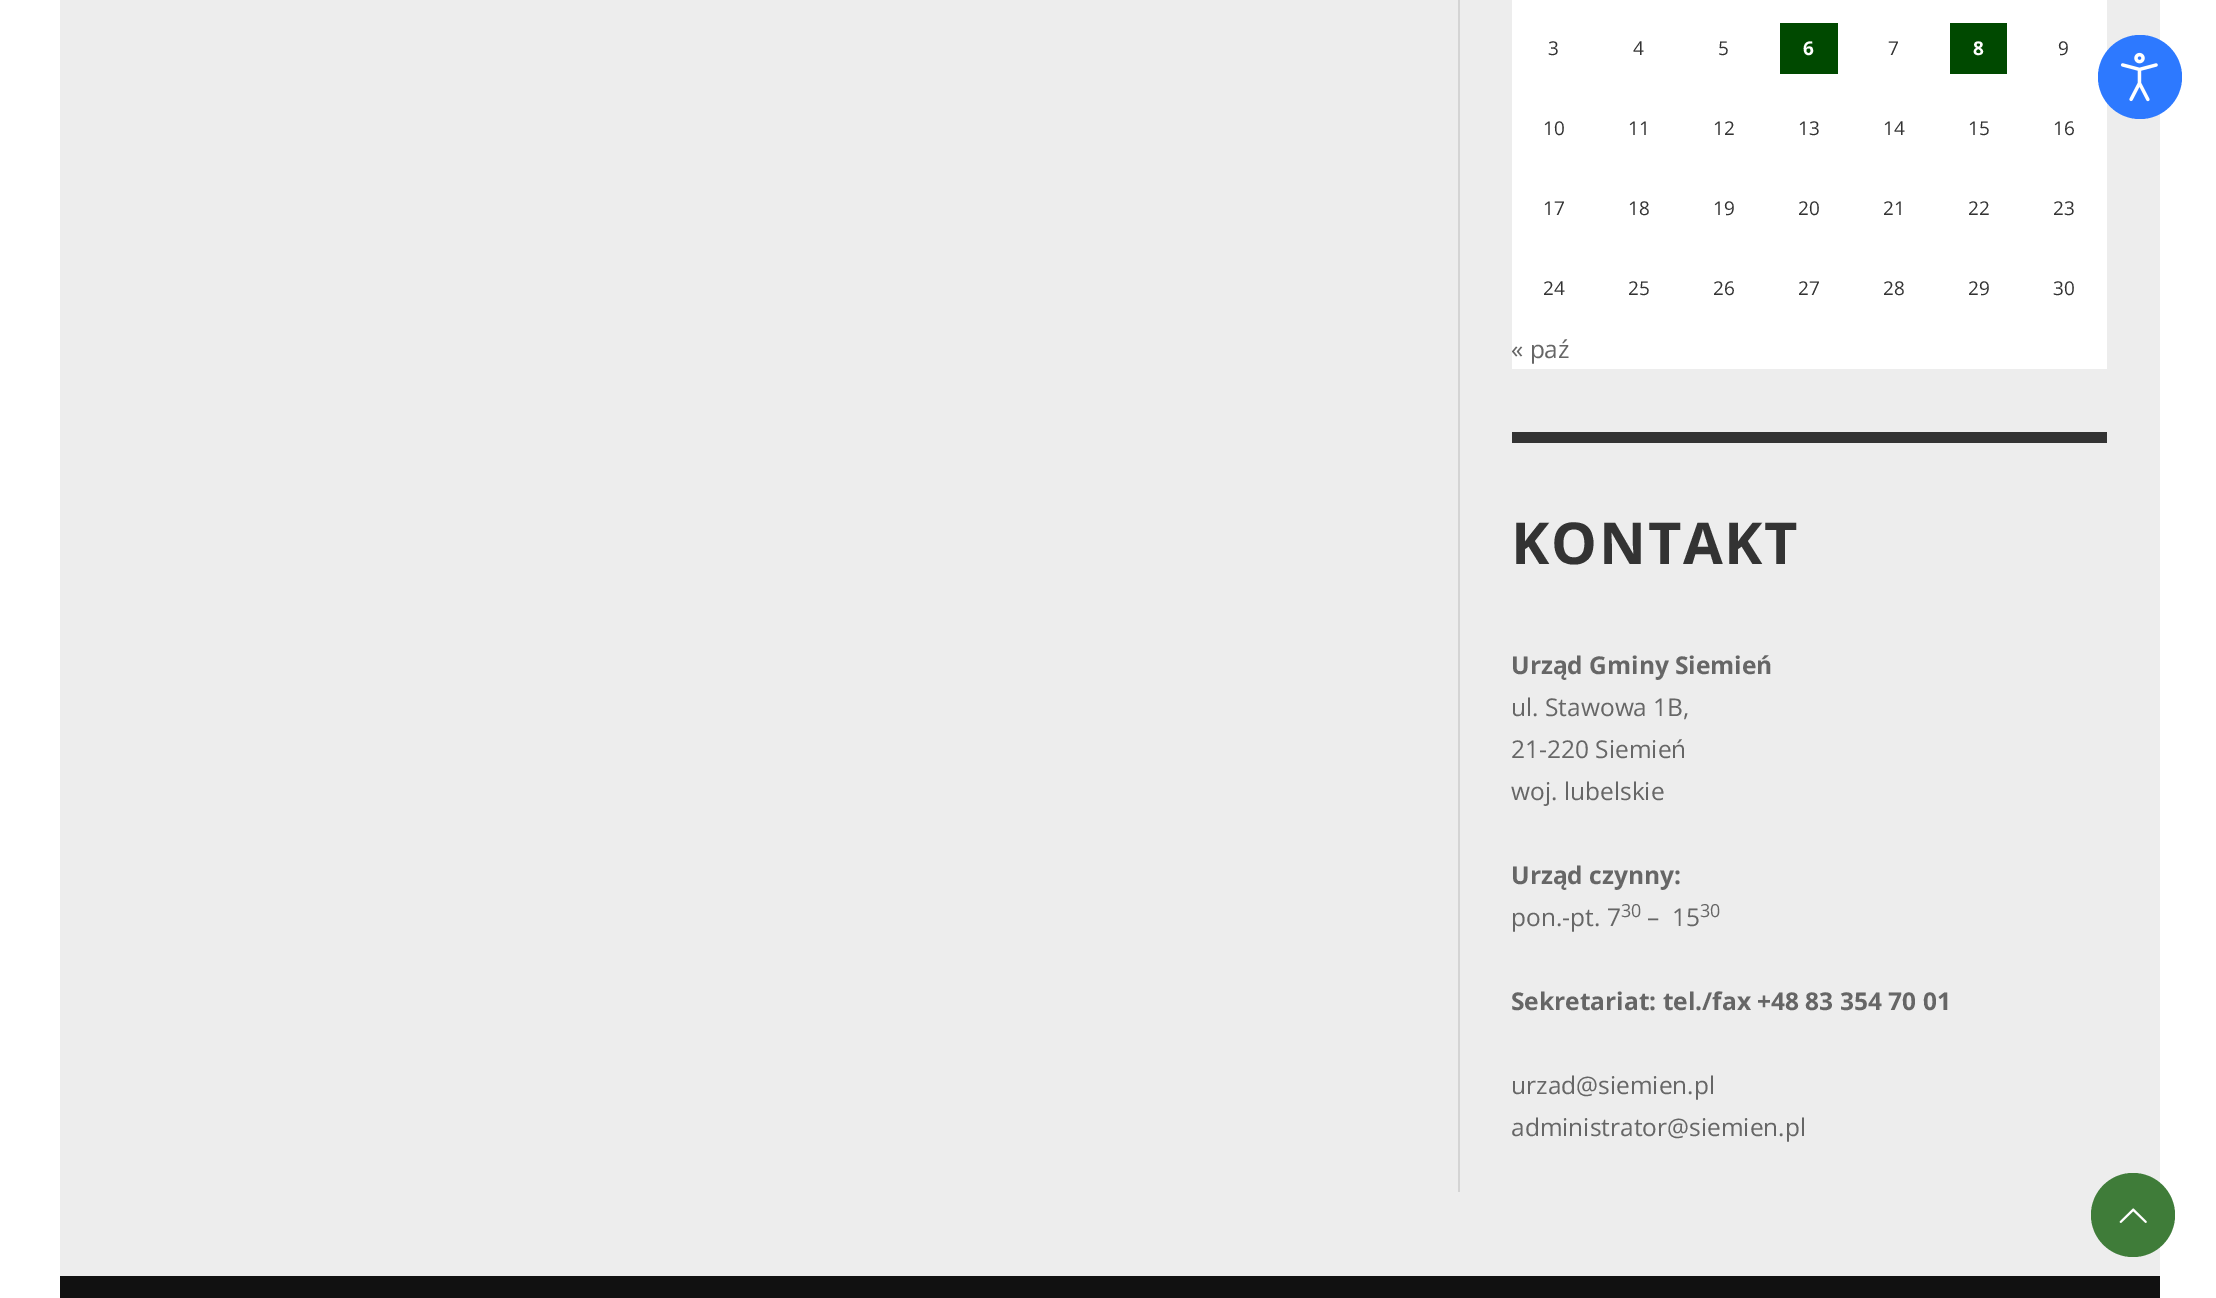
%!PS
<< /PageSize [2216 1298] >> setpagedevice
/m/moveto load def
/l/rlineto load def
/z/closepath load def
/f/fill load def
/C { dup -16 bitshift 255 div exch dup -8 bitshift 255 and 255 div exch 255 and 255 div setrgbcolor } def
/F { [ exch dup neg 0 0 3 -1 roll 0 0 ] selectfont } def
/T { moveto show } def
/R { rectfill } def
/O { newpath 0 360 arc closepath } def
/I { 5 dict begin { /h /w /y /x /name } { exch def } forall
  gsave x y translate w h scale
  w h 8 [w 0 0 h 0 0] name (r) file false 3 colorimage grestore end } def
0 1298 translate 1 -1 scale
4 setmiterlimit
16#FFFFFF C
0 0 2216 1298 R
16#EDEDED C
60 0 2100 1276 R
16#D4D4D4 C
1458 -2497 m 0 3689 l 700 0 l -698 0 l 0 -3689 l z f
16#FFFFFF C
1512 327 595 42 R
1512 0 595 9 R
1512 9 595 79 R
/OpenSans-Regular 19 F
16#333333 C
(3) 1548 55 T
(4) 1633 55 T
(5) 1718 55 T
16#004900 C
1780 23 58 51 R
/OpenSans-Bold 19 F
16#FFFFFF C
(6) 1803 55 T
/OpenSans-Regular 19 F
16#333333 C
(7) 1888 55 T
16#004900 C
1950 23 57 51 R
/OpenSans-Bold 19 F
16#FFFFFF C
(8) 1973 55 T
/OpenSans-Regular 19 F
16#333333 C
(9) 2058 55 T
16#FFFFFF C
1512 88 595 80 R
16#333333 C
(10) 1543 135 T
(11) 1628 135 T
(12) 1713 135 T
(13) 1798 135 T
(14) 1883 135 T
(15) 1968 135 T
(16) 2053 135 T
16#FFFFFF C
1512 168 595 81 R
16#333333 C
(17) 1543 215 T
(18) 1628 215 T
(19) 1713 215 T
(20) 1798 215 T
(21) 1883 215 T
(22) 1968 215 T
(23) 2053 215 T
16#FFFFFF C
1512 249 595 78 R
16#333333 C
(24) 1543 295 T
(25) 1628 295 T
(26) 1713 295 T
(27) 1798 295 T
(28) 1883 295 T
(29) 1968 295 T
(30) 2053 295 T
/OpenSans-Regular 24.5 F
16#666666 C
(« paź) 1511 358 T
16#333333 C
1512 432 595 11 R
/OpenSans-Bold 57.75 F
1511 564 m 1.75 0 (KONTAKT) ashow
/OpenSans-Bold 24.5 F
16#666666 C
(Urząd Gminy Siemień) 1511 674 T
/OpenSans-Regular 24.5 F
(ul. Stawowa 1B,) 1511 716 T
(21-220 Siemień) 1511 758 T
(woj. lubelskie) 1511 800 T
/OpenSans-Bold 24.5 F
(Urząd czynny:) 1511 884 T
/OpenSans-Regular 24.5 F
(pon.-pt. 7) 1511 926 T
/OpenSans-Regular 18 F
(30) 1621 917 T
/OpenSans-Regular 24.5 F
(–  15) 1647 926 T
/OpenSans-Regular 18 F
(30) 1700 917 T
/OpenSans-Bold 24.5 F
(Sekretariat: tel./fax +48 83 354 70 01) 1511 1010 T
/OpenSans-Regular 24.5 F
(urzad@siemien.pl) 1511 1094 T
(administrator@siemien.pl) 1511 1136 T
16#111111 C
60 1276 2100 22 R
16#2D79FF C
2140 77 42 O f
(1.rgb) 2120 52 38 50 I
16#3F7C39 C
2133 1215 42 O f
(2.rgb) 2119 1208 28 15 I
showpage
